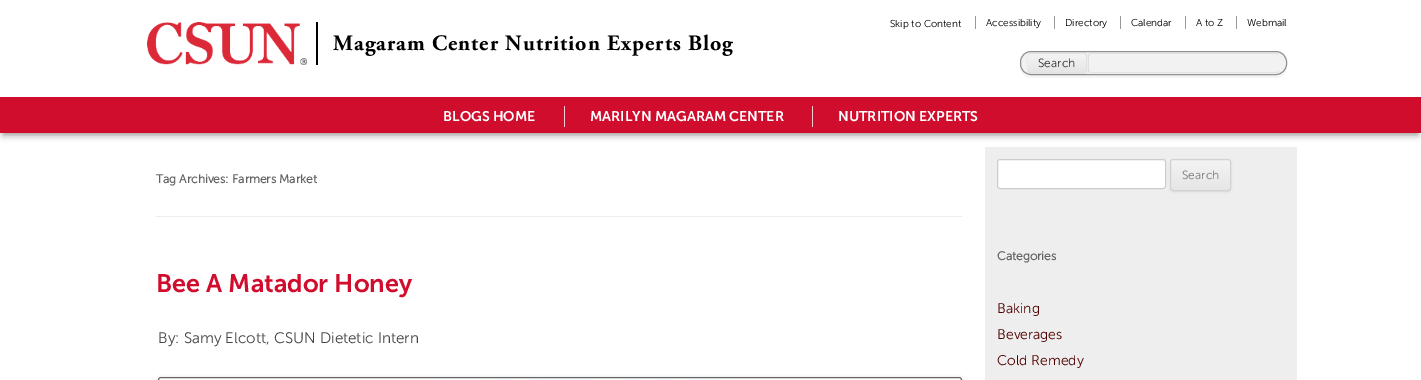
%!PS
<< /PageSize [1421 380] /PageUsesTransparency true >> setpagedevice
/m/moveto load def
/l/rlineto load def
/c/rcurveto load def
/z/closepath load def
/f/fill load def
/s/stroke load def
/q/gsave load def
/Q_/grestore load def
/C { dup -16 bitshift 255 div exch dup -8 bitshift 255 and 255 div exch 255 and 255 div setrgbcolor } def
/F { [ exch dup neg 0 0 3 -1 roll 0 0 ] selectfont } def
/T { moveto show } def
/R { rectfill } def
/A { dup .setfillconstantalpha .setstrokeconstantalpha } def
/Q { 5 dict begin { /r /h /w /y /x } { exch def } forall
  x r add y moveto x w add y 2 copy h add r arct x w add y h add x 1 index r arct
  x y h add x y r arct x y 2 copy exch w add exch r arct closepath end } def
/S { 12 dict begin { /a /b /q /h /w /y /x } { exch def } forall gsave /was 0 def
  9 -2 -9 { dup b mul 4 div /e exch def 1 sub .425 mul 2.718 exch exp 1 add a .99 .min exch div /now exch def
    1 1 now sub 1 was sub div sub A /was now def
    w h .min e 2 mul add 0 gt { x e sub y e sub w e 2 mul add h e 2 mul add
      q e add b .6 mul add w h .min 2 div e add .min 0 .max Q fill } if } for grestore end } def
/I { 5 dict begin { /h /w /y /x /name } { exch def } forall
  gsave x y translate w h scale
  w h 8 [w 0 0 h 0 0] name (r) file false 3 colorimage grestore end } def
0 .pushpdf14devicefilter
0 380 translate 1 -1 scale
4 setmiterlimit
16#FFFFFF C
0 0 1421 380 R
16#000000 C
316 22 2 43 R
(1.rgb) 147 22 160 43 I
/AdobeGaramond-Bold 22 F
333 50 m 1 0 (Magaram Center Nutrition Experts Blog) ashow
/MuseoSans-Light 10 F
(Skip to Content) 890 27 T
16#999999 C
975 16 1 13 R
16#000000 C
(Accessibility) 986 26 T
16#999999 C
1054 16 1 13 R
16#000000 C
(Directory) 1065 26 T
16#999999 C
1120 16 1 13 R
16#000000 C
(Calendar) 1131 26 T
16#999999 C
1185 16 1 13 R
16#000000 C
(A to Z) 1196 26 T
16#999999 C
1236 16 1 13 R
16#000000 C
(Webmail) 1247 26 T
16#F5F5F5 C
1020 64 m 0 7 3 14 11 14 c 245 0 l 8 0 11 -7 11 -14 c 0 6 -5 11 -11 11 c -245 0 l -6 0 -11 -5 -11 -11 c z f
16#F2F2F2 C
1020.5 51.5 266 23 10.5 Q q f Q_
16#919191 C
s
16#E2E2E2 C
1091 53 m 185 0 l 2 0 3 1 3 3 c 0 14 l 0 2 -1 3 -3 3 c -185 0 l -2 0 -3 -1 -3 -3 c 0 -14 l 0 -2 1 -3 3 -3 c z 1091 54 m 185 0 l 2 0 3 1 3 2 c 0 14 l 0 1 -1 2 -3 2 c -185 0 l -1 0 -2 -1 -2 -2 c 0 -14 l 0 -1 1 -2 2 -2 c z eofill
16#404040 C
1028 54 59 20 3 1 .1 S
q 1031 54 m 53 0 l 1 0 2 1 2 2 c 0 14 l 0 1 -1 2 -2 2 c -53 0 l -2 0 -3 -1 -3 -2 c 0 -14 l 0 -1 1 -2 3 -2 c z clip newpath
<< /ShadingType 2 /ColorSpace /DeviceRGB /Coords [1057 54 1057 72] /Extend [true true] /Function << /FunctionType 2 /Domain [0 1] /C0 [.957 .957 .957] /C1 [.902 .902 .902] /N 1 >> >> shfill Q_
16#E2E2E2 C
1031 53 m 53 0 l 2 0 3 1 3 3 c 0 14 l 0 2 -1 3 -3 3 c -53 0 l -2 0 -3 -1 -3 -3 c 0 -14 l 0 -2 1 -3 3 -3 c z 1031 54 m 53 0 l 1 0 2 1 2 2 c 0 14 l 0 1 -1 2 -2 2 c -53 0 l -2 0 -3 -1 -3 -2 c 0 -14 l 0 -1 1 -2 3 -2 c z eofill
/MuseoSans-Light 12 F
16#333333 C
(Search) 1038 67 T
16#969191 C
3 105 1415 30 0 3.5 1 S
16#D00D2D C
0 97 1421 36 R
/MuseoSans-SemiBold 14 F
16#FFFFFF C
(BLOGS HOME) 443 121 T
16#F6CFD5 C
564 106 1 21 R
16#FFFFFF C
(MARILYN MAGARAM CENTER) 590 121 T
16#F6CFD5 C
812 106 1 21 R
16#FFFFFF C
(NUTRITION EXPERTS) 838 121 T
16#EDEDED C
156 216 806 1 R
/MuseoSans-Bold 12 F
16#636363 C
(Tag Archives: Farmers Market) 156 183 T
/MuseoSans-SemiBold 25.25 F
16#D00D2D C
(Bee A Matador Honey) 156 292 T
/MuseoSans-Light 15.25 F
16#444444 C
(By: Samy Elcott, CSUN Dietetic Intern) 158 343 T
q
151 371 m 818 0 l 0 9 l -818 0 l z 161 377 m 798 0 l 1.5 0 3 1.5 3 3 c 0 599 l 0 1.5 -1.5 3 -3 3 c -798 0 l -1.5 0 -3 -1.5 -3 -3 c 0 -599 l 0 -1.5 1.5 -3 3 -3 c z eoclip newpath
16#000000 C
158 378 804 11 3 2 .2 S
Q_
16#686868 C
158.5 377.5 803 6 2.5 Q s
(2.rgb) 441 379 282 1 I
16#EEEEEE C
985 147 312 233 R
16#FFFFFF C
997.5 159.5 168 29 2.5 Q q f Q_
16#CCCCCC C
s
16#404040 C
1170 160 61 32 3 1 .1 S
q
1170 159 61 32 3 Q clip newpath
q 1170 160 m 61 0 l 0 30 l -61 0 l z clip newpath
<< /ShadingType 2 /ColorSpace /DeviceRGB /Coords [1201 160 1201 190] /Extend [true true] /Function << /FunctionType 2 /Domain [0 1] /C0 [.957 .957 .957] /C1 [.902 .902 .902] /N 1 >> >> shfill Q_
Q_
16#D2D2D2 C
1170.5 159.5 60 31 2.5 Q s
/MuseoSans-Light 12 F
16#7C7C7C C
(Search) 1182 179 T
/MuseoSans-Bold 12 F
16#636363 C
(Categories) 997 260 T
/MuseoSans-Light 14 F
16#500000 C
(Baking) 997 313 T
(Beverages) 997 339 T
(Cold Remedy) 997 365 T
.poppdf14devicefilter showpage
